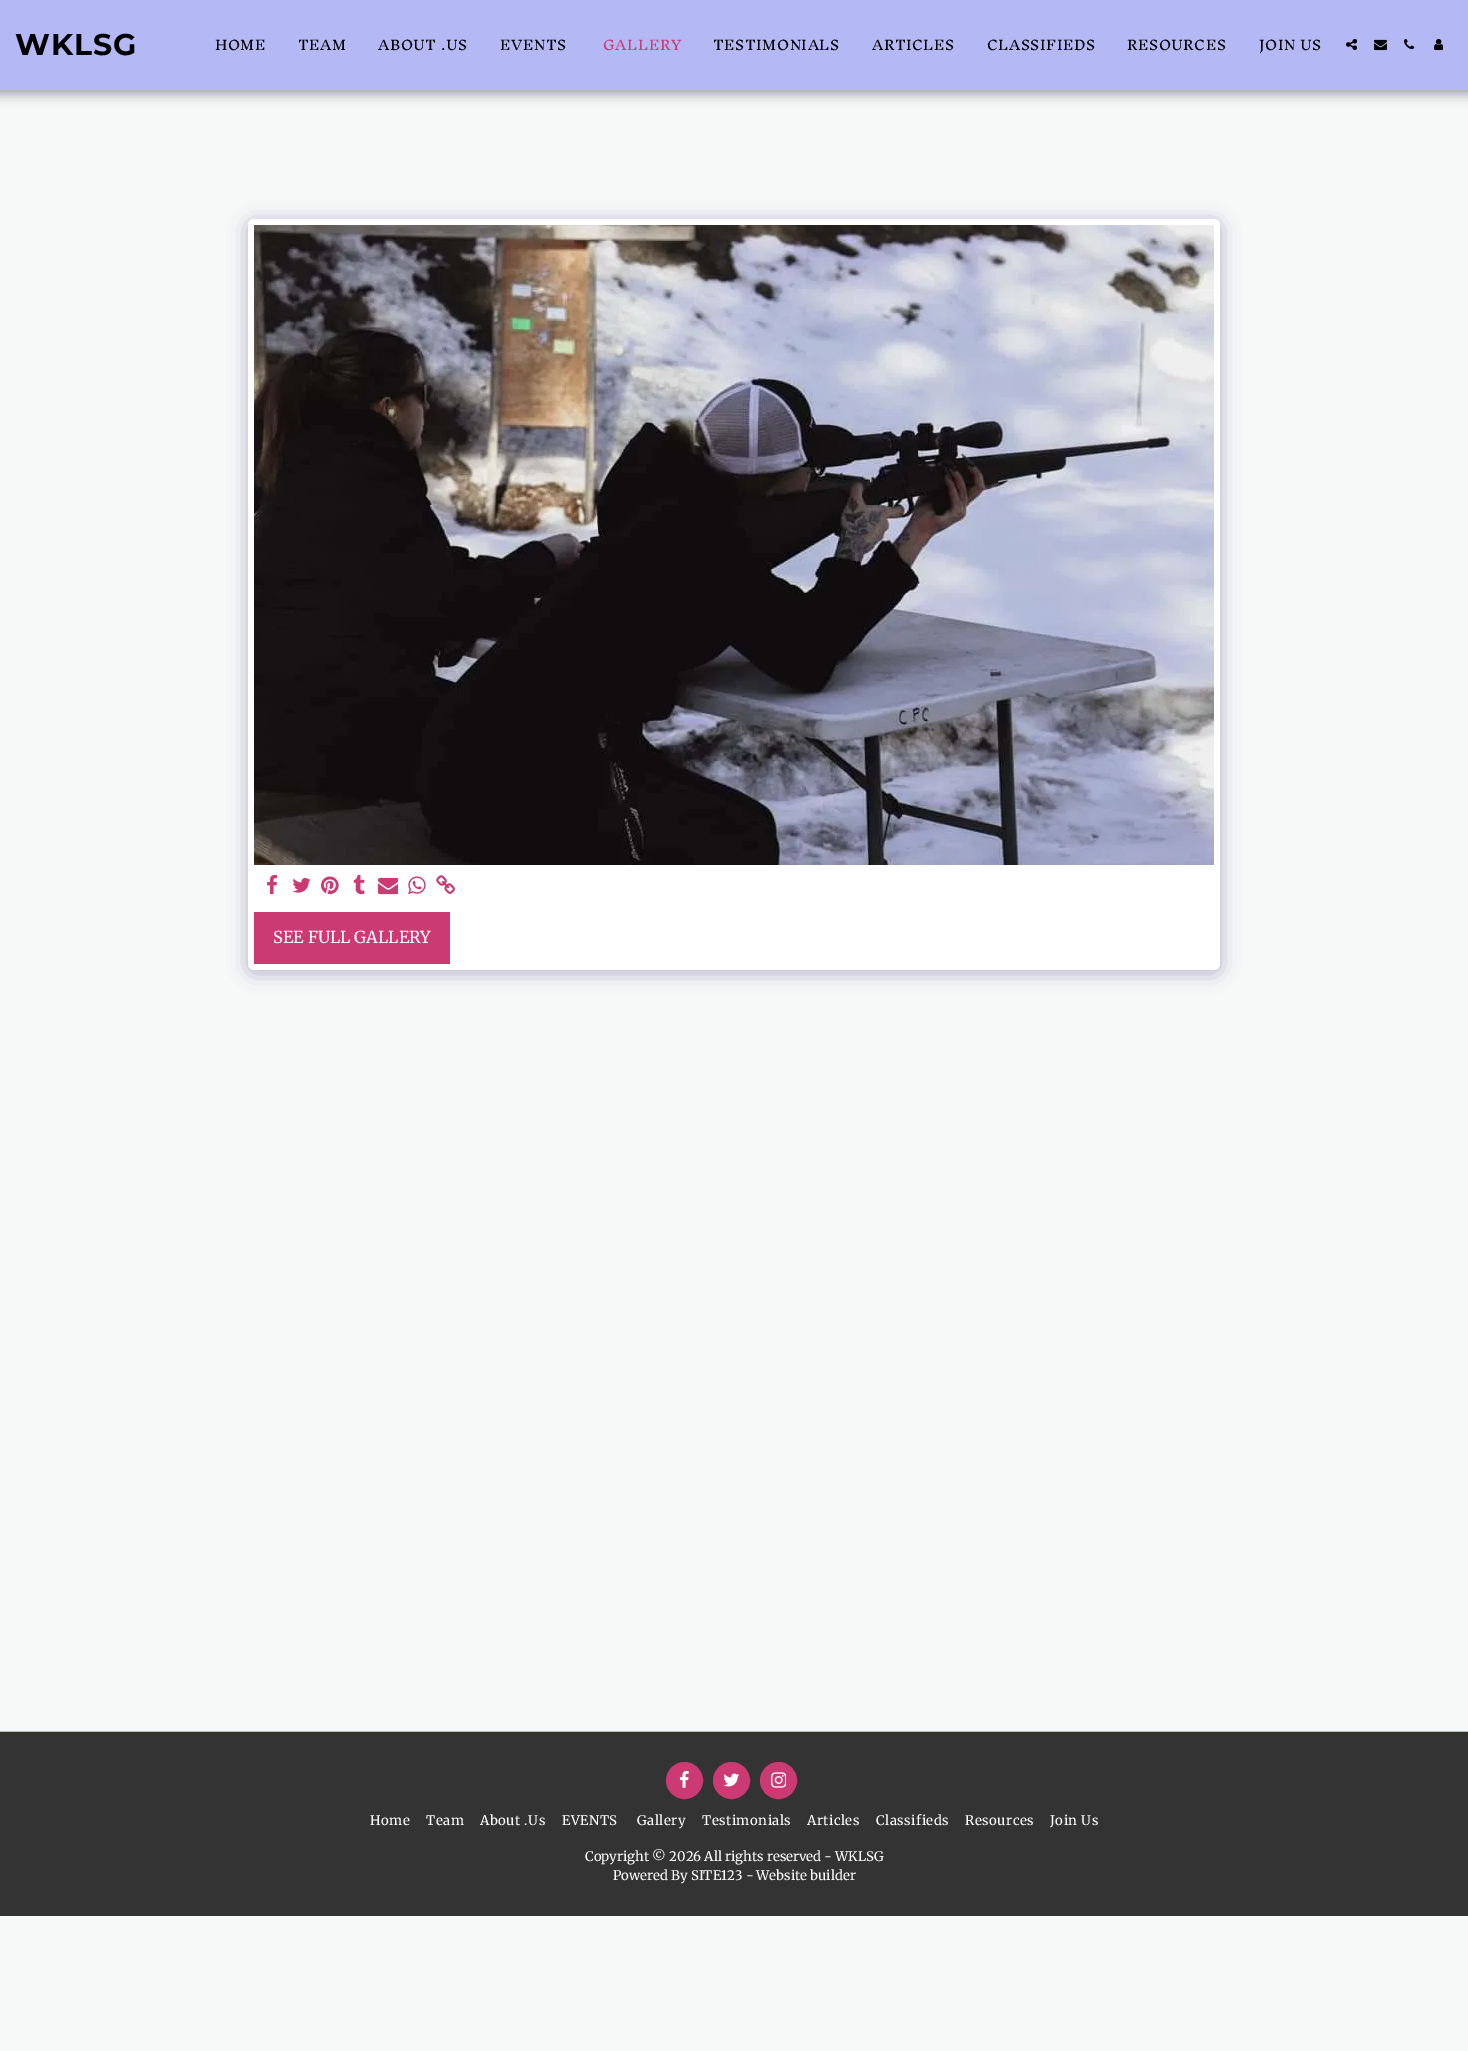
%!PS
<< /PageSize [1468 2051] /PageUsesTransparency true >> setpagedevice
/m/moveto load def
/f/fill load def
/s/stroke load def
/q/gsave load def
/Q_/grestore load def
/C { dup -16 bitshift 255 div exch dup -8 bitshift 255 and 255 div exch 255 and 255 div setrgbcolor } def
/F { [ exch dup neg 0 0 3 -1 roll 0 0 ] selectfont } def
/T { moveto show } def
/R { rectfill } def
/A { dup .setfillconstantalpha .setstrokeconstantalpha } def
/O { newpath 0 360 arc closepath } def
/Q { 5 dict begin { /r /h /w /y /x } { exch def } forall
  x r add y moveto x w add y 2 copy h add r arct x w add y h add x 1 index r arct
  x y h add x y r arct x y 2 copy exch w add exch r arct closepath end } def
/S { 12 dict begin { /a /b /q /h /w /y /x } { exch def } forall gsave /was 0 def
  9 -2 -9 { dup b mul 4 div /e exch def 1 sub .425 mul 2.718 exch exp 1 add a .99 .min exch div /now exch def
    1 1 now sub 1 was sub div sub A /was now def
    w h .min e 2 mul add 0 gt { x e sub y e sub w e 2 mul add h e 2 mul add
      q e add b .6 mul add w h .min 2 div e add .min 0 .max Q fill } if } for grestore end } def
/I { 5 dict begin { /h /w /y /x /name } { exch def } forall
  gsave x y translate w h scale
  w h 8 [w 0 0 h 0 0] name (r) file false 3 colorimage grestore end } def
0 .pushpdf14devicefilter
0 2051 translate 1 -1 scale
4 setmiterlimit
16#F7F9F8 C
0 0 1468 2051 R
16#000000 C
-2 0 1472 94 0 6 .35 S
16#B4B8F5 C
0 0 1468 90 R
/Montserrat-Bold 30 F
16#000000 C
15 55 m 1 0 (WKLSG) ashow
/InknutAntiqua-Regular 13 F
215 50 m .5 0 (HOME) ashow
298 50 m .5 0 (TEAM) ashow
378 50 m .5 0 (ABOUT .US) ashow
500 50 m .5 0 (EVENTS) ashow
16#CC3A73 C
603 50 m .5 0 (GALLERY) ashow
16#000000 C
713 50 m .5 0 (TESTIMONIALS) ashow
872 50 m .5 0 (ARTICLES) ashow
987 50 m .5 0 (CLASSIFIEDS) ashow
1127 50 m .5 0 (RESOURCES) ashow
1259 50 m .5 0 (JOIN US) ashow
(1.rgb) 1346 38 11 13 I
(2.rgb) 1374 39 13 12 I
(3.rgb) 1404 39 11 11 I
(4.rgb) 1434 39 9 12 I
16#4D3F7A C
248 222 972 751 6 10 .4 S
16#FFFFFF C
248 219 972 751 6 Q f
(5.rgb) 254 225 960 640 I
(6.rgb) 267 875 11 20 I
(7.rgb) 292 878 19 15 I
(8.rgb) 321 876 18 19 I
(9.rgb) 353 875 12 20 I
(10.rgb) 378 877 20 18 I
(11.rgb) 408 876 18 19 I
(12.rgb) 436 875 19 19 I
16#CC3A73 C
254 912 196 52 R
/Merriweather-Regular 16.5 F
16#FFFFFF C
(SEE FULL GALLERY) 273 943 T
16#B4B8F5 C
0 1731 1468 1 R
16#333333 C
0 1732 1468 184 R
16#CC3A73 C
684.5 1780.5 18 O q f Q_
s
(13.rgb) 679 1771 10 17 I
731.5 1780.5 18 O q f Q_
s
(14.rgb) 723 1773 17 14 I
778.5 1780.5 18 O q f Q_
s
(15.rgb) 771 1772 15 16 I
/Merriweather-Regular 13.2 F
16#FFFFFF C
370 1825 m .5 0 (Home) ashow
426 1825 m .5 0 (Team) ashow
480 1825 m .5 0 (About .Us) ashow
562 1825 m .5 0 (EVENTS) ashow
637 1825 m .5 0 (Gallery) ashow
702 1825 m .5 0 (Testimonials) ashow
807 1825 m .5 0 (Articles) ashow
876 1825 m .5 0 (Classifieds) ashow
965 1825 m .5 0 (Resources) ashow
1050 1825 m .5 0 (Join Us) ashow
(Copyright © 2026 All rights reserved - WKLSG) 585 1861 T
(Powered By SITE123 - Website builder) 613 1880 T
.poppdf14devicefilter showpage
